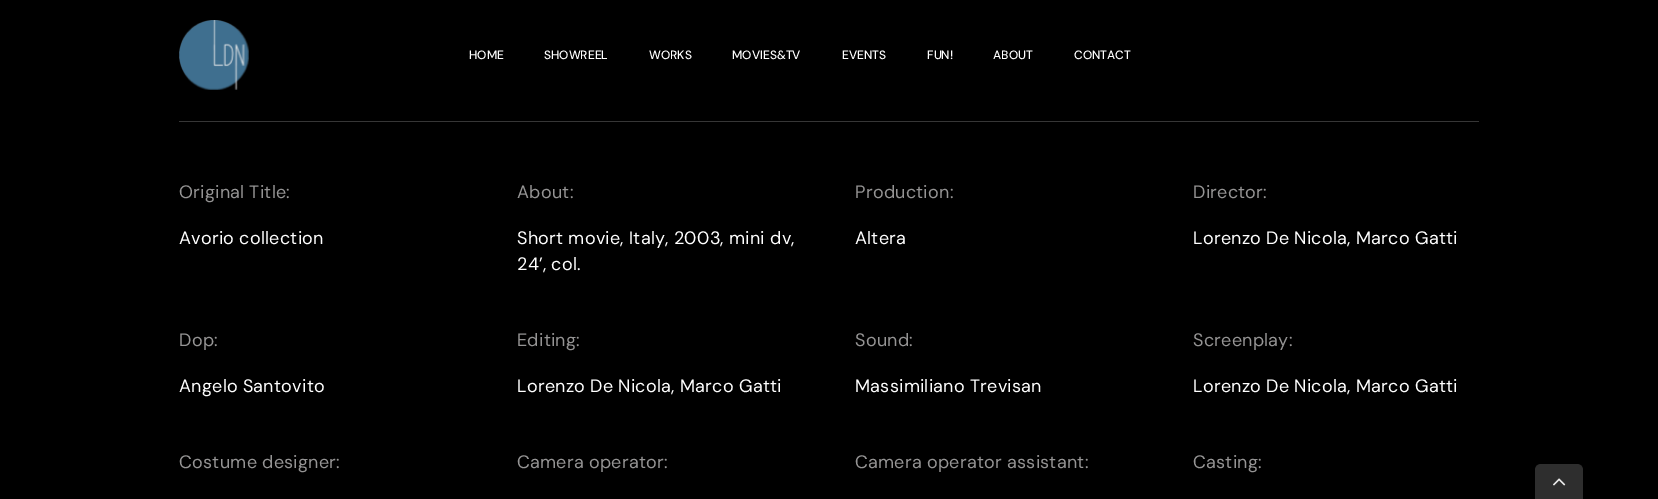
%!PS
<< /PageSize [1658 499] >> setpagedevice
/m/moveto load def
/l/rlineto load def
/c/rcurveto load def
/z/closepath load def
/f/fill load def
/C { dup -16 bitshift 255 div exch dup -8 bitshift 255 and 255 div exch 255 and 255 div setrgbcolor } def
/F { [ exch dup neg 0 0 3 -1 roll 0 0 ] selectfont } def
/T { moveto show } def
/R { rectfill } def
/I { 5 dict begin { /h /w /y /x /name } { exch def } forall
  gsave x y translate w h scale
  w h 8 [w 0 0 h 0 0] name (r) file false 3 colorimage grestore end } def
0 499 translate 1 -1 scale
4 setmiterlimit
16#000000 C
0 0 1658 499 R
(1.rgb) 179 20 70 70 I
/DMSans-Medium 12 F
16#FFFFFF C
(HOME) 469 59 T
(SHOWREEL) 544 59 T
(WORKS) 649 59 T
(MOVIES&TV) 732 59 T
(EVENTS) 842 59 T
(FUN!) 927 59 T
(ABOUT) 993 59 T
(CONTACT) 1074 59 T
16#363636 C
179 121 1300 1 R
/DMSans-Regular 18 F
16#959494 C
179 198 m .25 0 (Original Title:) ashow
16#FFFFFF C
179 244 m .25 0 (Avorio collection) ashow
16#959494 C
517 198 m .25 0 (About:) ashow
16#FFFFFF C
517 244 m .25 0 (Short movie, Italy, 2003, mini dv,) ashow
517 270 m .25 0 (24’, col.) ashow
16#959494 C
855 198 m .25 0 (Production:) ashow
16#FFFFFF C
855 244 m .25 0 (Altera) ashow
16#959494 C
1193 198 m .25 0 (Director:) ashow
16#FFFFFF C
1193 244 m .25 0 (Lorenzo De Nicola, Marco Gatti) ashow
16#959494 C
179 346 m .25 0 (Dop:) ashow
16#FFFFFF C
179 392 m .25 0 (Angelo Santovito) ashow
16#959494 C
517 346 m .25 0 (Editing:) ashow
16#FFFFFF C
517 392 m .25 0 (Lorenzo De Nicola, Marco Gatti) ashow
16#959494 C
855 346 m .25 0 (Sound:) ashow
16#FFFFFF C
855 392 m .25 0 (Massimiliano Trevisan) ashow
16#959494 C
1193 346 m .25 0 (Screenplay:) ashow
16#FFFFFF C
1193 392 m .25 0 (Lorenzo De Nicola, Marco Gatti) ashow
16#959494 C
179 468 m .25 0 (Costume designer:) ashow
517 468 m .25 0 (Camera operator:) ashow
855 468 m .25 0 (Camera operator assistant:) ashow
1193 468 m .25 0 (Casting:) ashow
16#2E2E2E C
1541 464 m 36 0 l 3.5 0 6 2.5 6 6 c 0 29 l -48 0 l 0 -29 l 0 -3.5 2.5 -6 6 -6 c z f
(2.rgb) 1553 478 13 8 I
showpage
